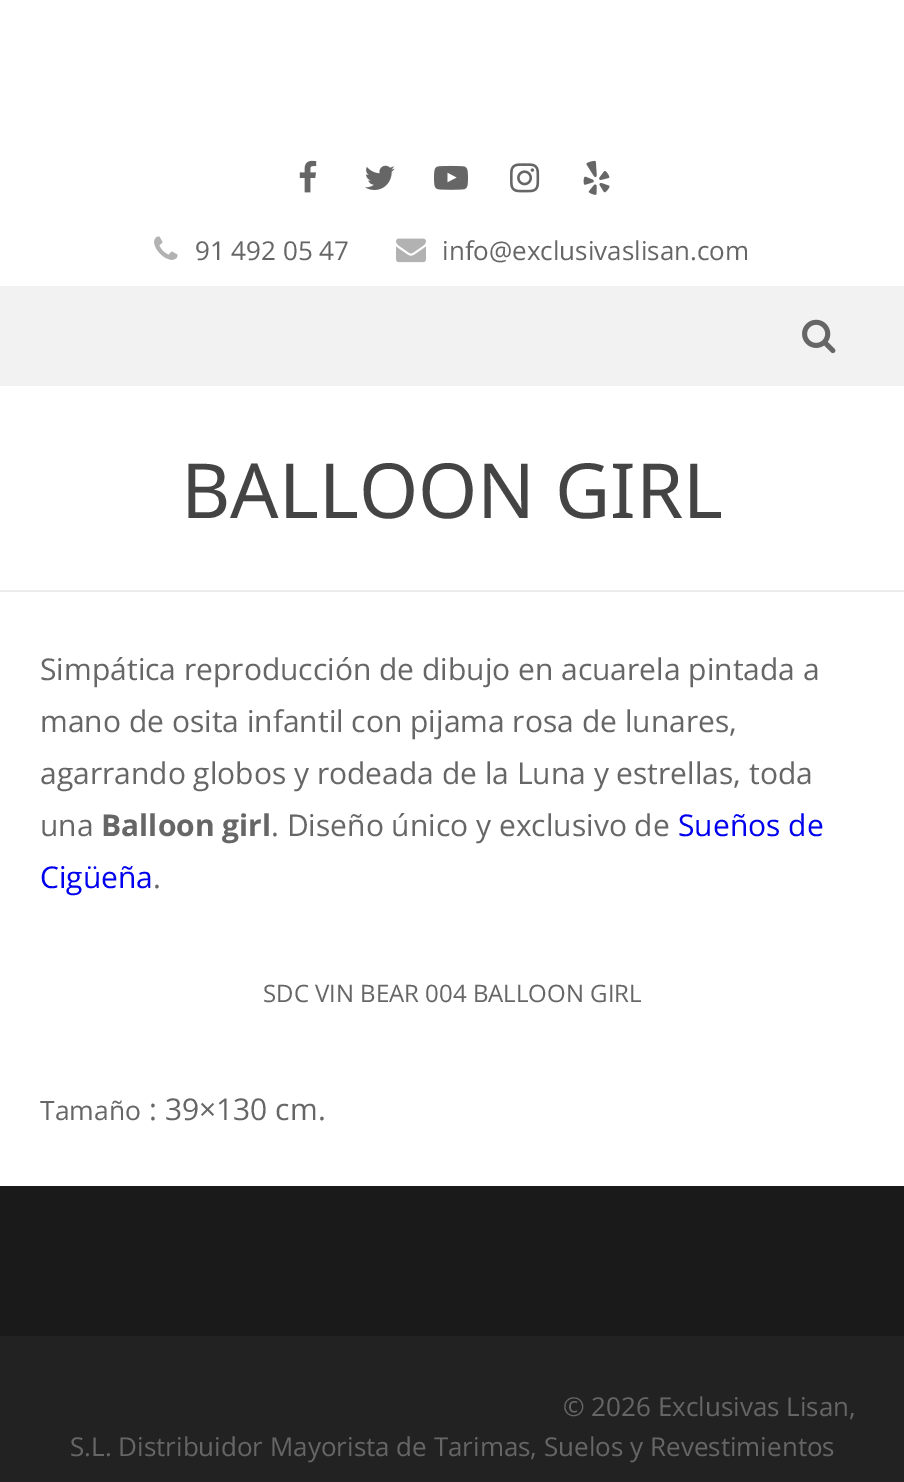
%!PS
<< /PageSize [904 1482] >> setpagedevice
/m/moveto load def
/l/rlineto load def
/c/rcurveto load def
/z/closepath load def
/q/gsave load def
/Q_/grestore load def
/C { dup -16 bitshift 255 div exch dup -8 bitshift 255 and 255 div exch 255 and 255 div setrgbcolor } def
/F { [ exch dup neg 0 0 3 -1 roll 0 0 ] selectfont } def
/T { moveto show } def
/R { rectfill } def
/I { 5 dict begin { /h /w /y /x /name } { exch def } forall
  gsave x y translate w h scale
  w h 8 [w 0 0 h 0 0] name (r) file false 3 colorimage grestore end } def
0 1482 translate 1 -1 scale
4 setmiterlimit
16#FFFFFF C
0 0 904 1482 R
(1.rgb) 299 160 18 33 I
(2.rgb) 365 165 30 25 I
(3.rgb) 434 165 34 25 I
(4.rgb) 510 163 30 30 I
(5.rgb) 583 160 27 35 I
(6.rgb) 154 236 24 24 I
/OpenSans-Regular 26 F
16#666666 C
(91 492 05 47) 195 260 T
(7.rgb) 396 238 30 25 I
(info@exclusivaslisan.com) 442 260 T
16#F2F2F2 C
0 286 904 100 R
(8.rgb) 802 319 34 35 I
q
0 386 904 206 rectclip
16#EBEBEB C
-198 188 m 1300 0 l 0 602 l -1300 0 l z 0 380 m 904 0 l 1 0 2 1 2 2 c 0 206 l 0 1 -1 2 -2 2 c -904 0 l -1 0 -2 -1 -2 -2 c 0 -206 l 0 -1 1 -2 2 -2 c z eofill
Q_
/NotoSans-Regular 76 F
16#444444 C
(BALLOON GIRL) 181 518 T
/OpenSans-Regular 30 F
16#666666 C
(Simpática reproducción de dibujo en acuarela pintada a) 40 680 T
(mano de osita infantil con pijama rosa de lunares,) 40 732 T
(agarrando globos y rodeada de la Luna y estrellas, toda) 40 784 T
(una) 40 836 T
/OpenSans-Bold 30 F
(Balloon girl) 101 836 T
/OpenSans-Regular 30 F
(. Diseño único y exclusivo de) 271 836 T
16#0000EE C
(Sueños de) 678 836 T
(Cigüeña) 40 888 T
16#666666 C
(.) 153 888 T
/OpenSans-Regular 24 F
(SDC VIN BEAR 004 BALLOON GIRL) 263 1002 T
/OpenSans-Regular 26.5 F
(Tamaño) 40 1120 T
/OpenSans-Regular 30 F
(: 39×130 cm.) 149 1120 T
16#1A1A1A C
0 1186 904 150 R
16#222222 C
0 1336 904 146 R
/OpenSans-Regular 26 F
16#666666 C
(© 2026 Exclusivas Lisan,) 563 1416 T
(S.L. Distribuidor Mayorista de Tarimas, Suelos y Revestimientos) 70 1456 T
showpage
